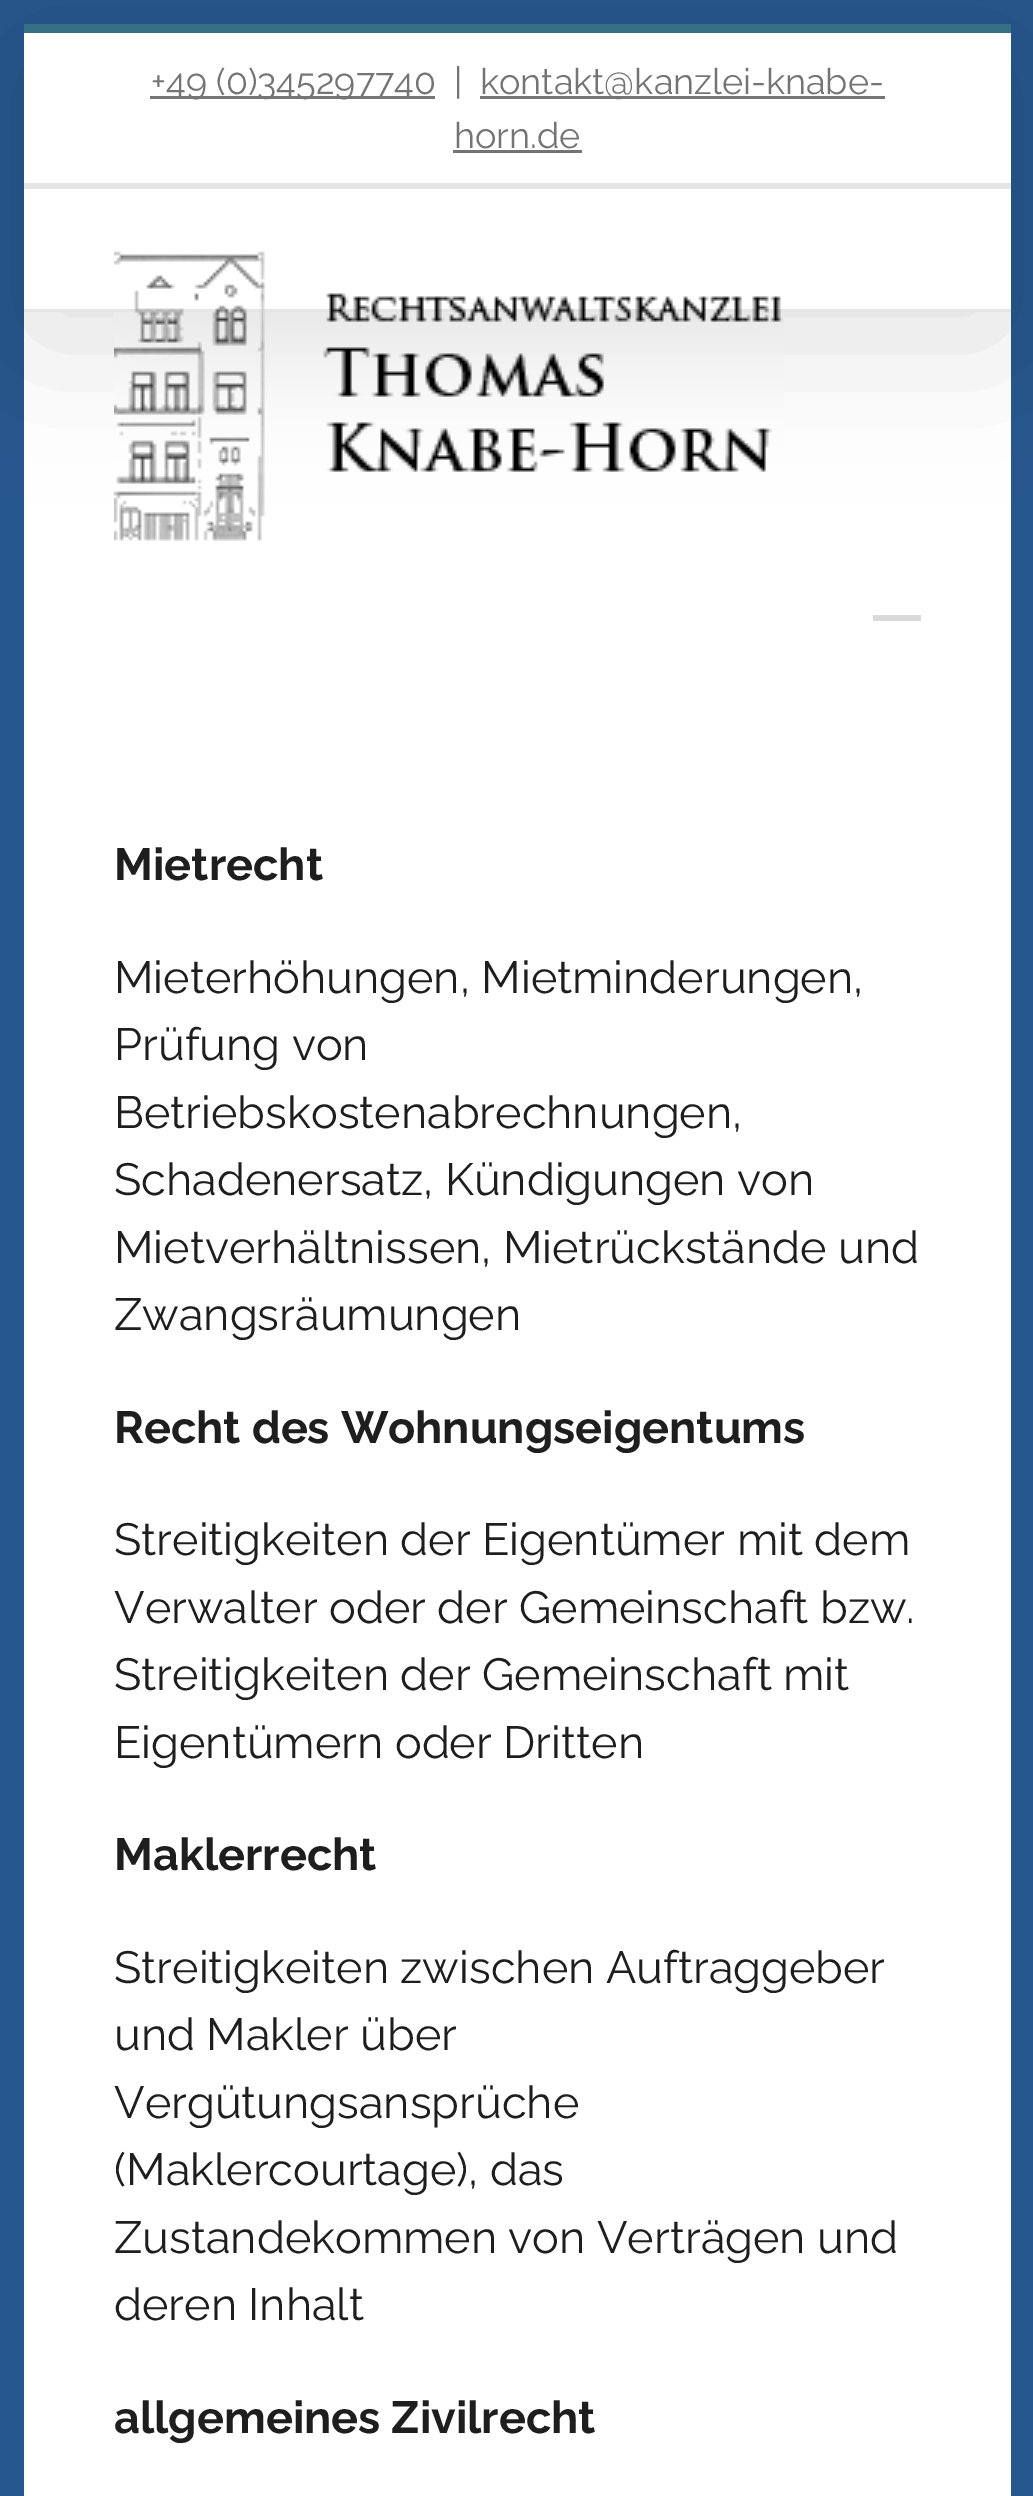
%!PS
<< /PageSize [1033 2496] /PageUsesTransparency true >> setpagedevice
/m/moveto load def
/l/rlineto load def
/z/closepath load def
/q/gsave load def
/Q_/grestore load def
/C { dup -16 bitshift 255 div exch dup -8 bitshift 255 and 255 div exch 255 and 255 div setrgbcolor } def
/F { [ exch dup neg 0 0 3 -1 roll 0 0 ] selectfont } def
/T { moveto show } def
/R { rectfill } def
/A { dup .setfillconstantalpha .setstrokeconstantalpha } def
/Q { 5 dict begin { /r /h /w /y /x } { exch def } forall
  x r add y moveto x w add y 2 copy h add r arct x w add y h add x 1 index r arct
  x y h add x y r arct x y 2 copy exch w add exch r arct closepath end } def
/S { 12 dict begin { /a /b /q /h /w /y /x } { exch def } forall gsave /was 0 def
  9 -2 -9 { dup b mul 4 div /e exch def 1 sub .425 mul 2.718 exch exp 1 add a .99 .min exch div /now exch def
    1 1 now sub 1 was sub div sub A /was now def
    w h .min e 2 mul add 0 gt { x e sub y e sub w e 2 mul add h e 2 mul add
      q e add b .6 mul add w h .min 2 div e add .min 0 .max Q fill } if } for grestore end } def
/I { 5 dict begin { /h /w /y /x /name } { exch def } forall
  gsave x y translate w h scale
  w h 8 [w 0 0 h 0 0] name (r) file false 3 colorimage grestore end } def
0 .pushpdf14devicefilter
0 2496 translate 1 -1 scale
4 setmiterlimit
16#26568E C
0 0 1033 2496 R
16#FFFFFF C
24 33 987 2463 R
q
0 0 m 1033 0 l 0 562 l -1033 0 l z 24 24 m 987 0 l 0 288 l -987 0 l z eoclip newpath
16#000000 C
30 60 975 276 0 75 .14 S
Q_
16#366E85 C
24 24 987 9 R
16#E5E5E5 C
24 183 987 6 R
16#747474 C
150 96 285 3 R
/Raleway-Regular 36 F
(+49 \(0\)345297740) 151 94 T
(|) 454 94 T
480 96 405 3 R
(kontakt@kanzlei-knabe-) 480 94 T
(horn.de) 454 148 T
453 150 129 3 R
16#E5E5E5 C
24 309 987 3 R
(1.rgb) 114 251 670 290 I
16#DADADA C
873 615 48 6 R
/Raleway-Bold 45 F
16#1E1E1E C
(Mietrecht) 114 880 T
/Raleway-Regular 45 F
(Mieterhöhungen, Mietminderungen,) 114 993 T
(Prüfung von) 114 1060 T
(Betriebskostenabrechnungen,) 114 1128 T
(Schadenersatz, Kündigungen von) 114 1195 T
(Mietverhältnissen, Mietrückstände und) 114 1263 T
(Zwangsräumungen) 114 1330 T
/Raleway-Bold 45 F
(Recht des Wohnungseigentums) 114 1443 T
/Raleway-Regular 45 F
(Streitigkeiten der Eigentümer mit dem) 114 1555 T
(Verwalter oder der Gemeinschaft bzw.) 114 1623 T
(Streitigkeiten der Gemeinschaft mit) 114 1690 T
(Eigentümern oder Dritten) 114 1758 T
/Raleway-Bold 45 F
(Maklerrecht) 114 1870 T
/Raleway-Regular 45 F
(Streitigkeiten zwischen Auftraggeber) 114 1983 T
(und Makler über) 114 2050 T
(Vergütungsansprüche) 114 2118 T
(\(Maklercourtage\), das) 114 2185 T
(Zustandekommen von Verträgen und) 114 2253 T
(deren Inhalt) 114 2320 T
/Raleway-Bold 45 F
(allgemeines Zivilrecht) 114 2433 T
.poppdf14devicefilter showpage
